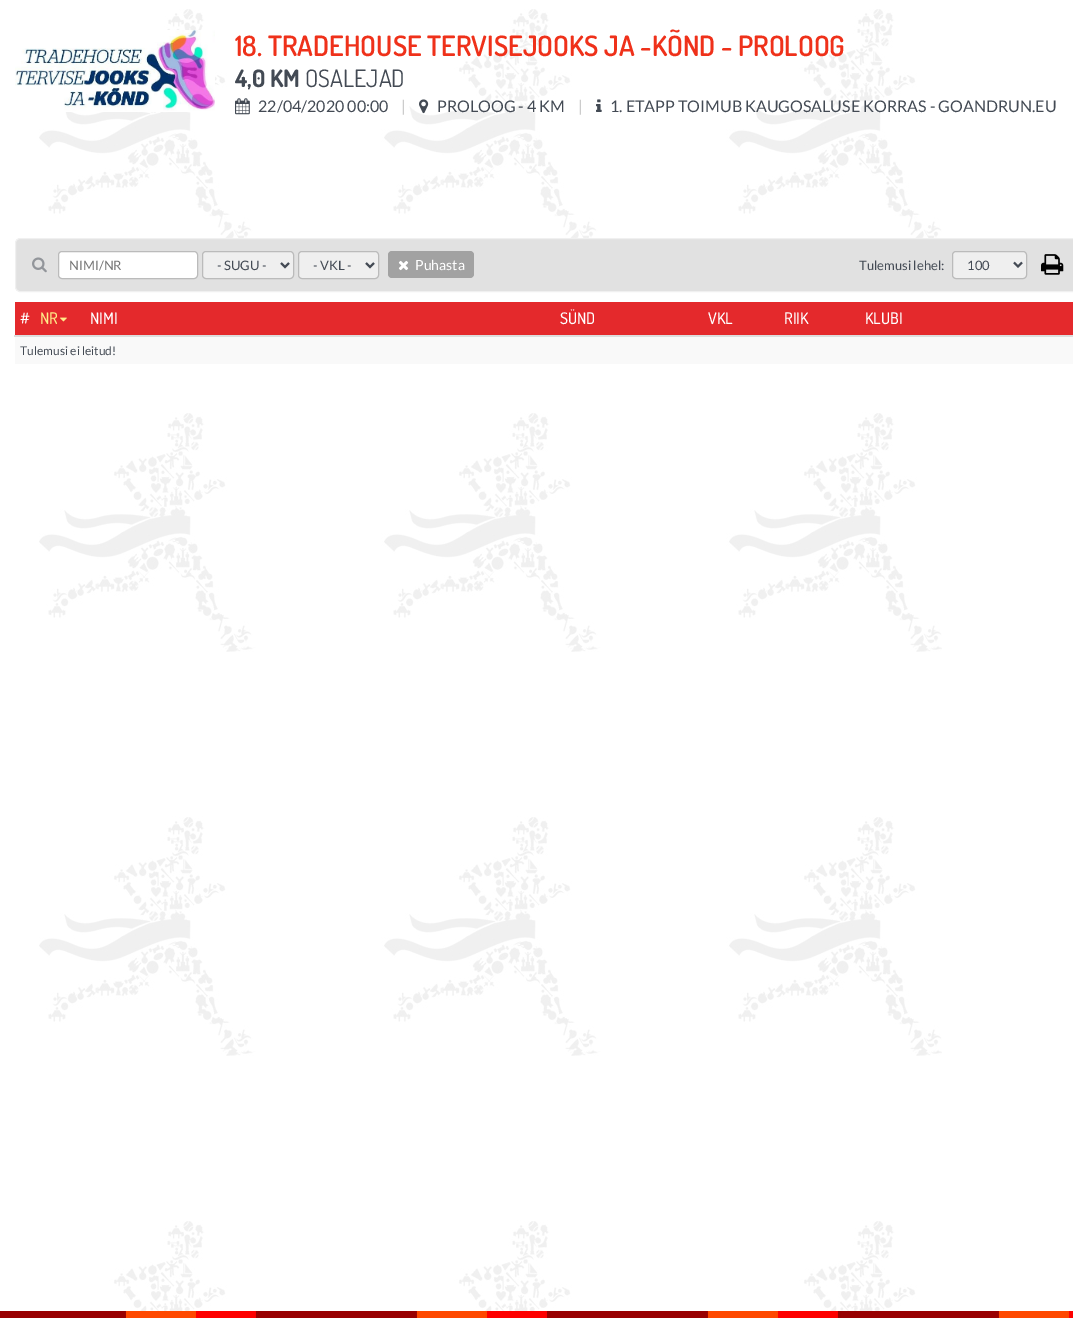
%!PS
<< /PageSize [1073 1320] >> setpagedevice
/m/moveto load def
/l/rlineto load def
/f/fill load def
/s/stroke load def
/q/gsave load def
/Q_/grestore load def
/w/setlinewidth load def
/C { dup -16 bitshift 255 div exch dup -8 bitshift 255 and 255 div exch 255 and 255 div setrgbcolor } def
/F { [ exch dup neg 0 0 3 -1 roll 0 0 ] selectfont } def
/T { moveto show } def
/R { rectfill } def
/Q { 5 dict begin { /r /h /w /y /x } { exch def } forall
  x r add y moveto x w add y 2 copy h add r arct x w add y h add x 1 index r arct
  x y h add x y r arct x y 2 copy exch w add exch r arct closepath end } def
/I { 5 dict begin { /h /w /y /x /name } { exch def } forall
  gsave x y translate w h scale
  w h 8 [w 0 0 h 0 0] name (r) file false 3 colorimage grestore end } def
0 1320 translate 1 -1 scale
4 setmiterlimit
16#FFFFFF C
0 0 1073 1320 R
(1.rgb) 39 9 903 1302 I
(2.rgb) 15 30 200 82 I
/Dosis-SemiBold 28 F
16#EF311A C
(18. TRADEHOUSE TERVISEJOOKS JA -KÕND - PROLOOG) 235 56 T
/Dosis-Bold 24 F
16#434A54 C
(4,0 KM) 235 87 T
/Dosis-Regular 24 F
(OSALEJAD) 305 87 T
(3.rgb) 235 98 15 17 I
/Lato-Regular 16 F
(22/04/2020 00:00) 258 112 T
16#CCCCCC C
(|) 401 112 T
(4.rgb) 419 99 10 15 I
16#434A54 C
(PROLOOG - 4 KM) 437 112 T
16#CCCCCC C
(|) 578 112 T
(5.rgb) 596 99 6 13 I
16#434A54 C
(1. ETAPP TOIMUB KAUGOSALUSE KORRAS - GOANDRUN.EU) 610 112 T
16#E1E1E1 C
15.5 238.5 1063 53 4.5 Q q f Q_
16#F0F0F0 C
s
(6.rgb) 32 257 15 16 I
16#FFFFFF C
58.5 251.5 139 27 3.5 Q q f Q_
16#BBBBBB C
s
/Lato-Regular 13 F
16#757575 C
(NIMI/NR) 69 270 T
16#EFEFEF C
202.5 251.5 91 27 3.5 Q q f Q_
16#BBBBBB C
s
16#434A54 C
2 w
281 263 m 4 4 l 4 -4 l s
(- SUGU -) 217 270 T
16#EFEFEF C
298.5 251.5 80 27 3.5 Q q f Q_
16#BBBBBB C
1 w
s
16#434A54 C
2 w
366 263 m 4 4 l 4 -4 l s
(- VKL -) 313 270 T
16#A2A2A2 C
388 251 86 27 4 Q f
(7.rgb) 398 260 11 11 I
/Lato-Regular 14 F
16#FFFFFF C
(Puhasta) 415 270 T
/Lato-Regular 13 F
16#434A54 C
(Tulemusi lehel:) 859 270 T
16#EFEFEF C
952.5 251.5 74 27 3.5 Q q f Q_
16#BBBBBB C
1 w
s
16#434A54 C
2 w
1014 262.5 m 4 4 l 4 -4 l s
(100) 967 270 T
(8.rgb) 1041 254 23 21 I
16#E4292C C
15 302 1058 33 R
/Dosis-Medium 16 F
16#FFFFFF C
(#) 20 324 T
16#FFEC88 C
(NR) 40 324 T
(9.rgb) 60 317 7 5 I
16#FFFFFF C
(NIMI) 90 324 T
(SÜND) 560 324 T
(VKL) 708 324 T
(RIIK) 784 324 T
16#DDDDDD C
14 335 1059 2 R
16#FFFFFF C
(KLUBI) 865 324 T
16#F9F9F9 C
15 337 1058 27 R
/Lato-Regular 12 F
16#434A54 C
(Tulemusi ei leitud!) 20 355 T
(10.rgb) 0 1311 1073 7 I
showpage
